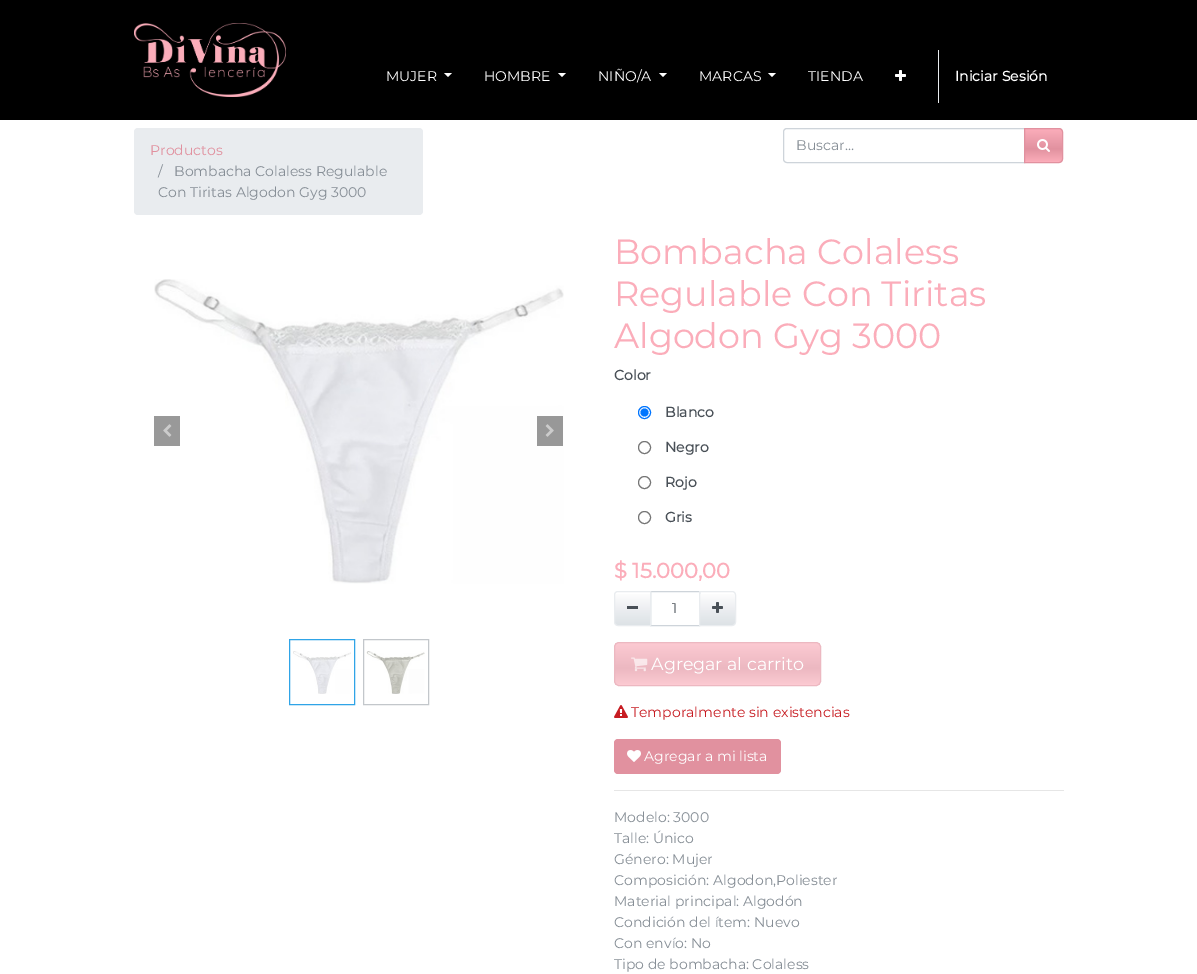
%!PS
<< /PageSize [1197 974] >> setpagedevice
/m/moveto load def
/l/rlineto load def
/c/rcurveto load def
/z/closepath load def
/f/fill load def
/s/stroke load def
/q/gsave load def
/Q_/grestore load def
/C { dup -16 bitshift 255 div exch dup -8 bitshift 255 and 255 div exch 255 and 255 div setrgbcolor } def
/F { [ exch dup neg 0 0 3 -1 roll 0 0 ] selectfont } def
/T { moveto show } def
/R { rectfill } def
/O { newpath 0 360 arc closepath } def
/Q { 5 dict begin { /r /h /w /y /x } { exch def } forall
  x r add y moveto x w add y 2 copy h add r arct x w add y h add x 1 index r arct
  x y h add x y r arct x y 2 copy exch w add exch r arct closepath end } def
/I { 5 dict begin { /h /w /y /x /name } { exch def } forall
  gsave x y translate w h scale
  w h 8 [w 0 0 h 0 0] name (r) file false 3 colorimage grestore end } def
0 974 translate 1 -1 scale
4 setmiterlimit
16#FFFFFF C
0 0 1197 974 R
16#000000 C
0 0 1197 120 R
(1.rgb) 134 23 152 74 I
/Montserrat-Regular 14 F
16#FFFFFF C
(MUJER) 386 81 T
444 73 m 8 0 l -4 4 l z f
(HOMBRE) 484 81 T
558 73 m 8 0 l -4 4 l z f
(NIÑO/A) 598 81 T
659 73 m 8 0 l -4 4 l z f
(MARCAS) 699 81 T
768 73 m 8 0 l -4 4 l z f
(TIENDA) 808 81 T
(2.rgb) 895 70 11 11 I
16#E9ECEF C
938 50 1 53 R
/Montserrat-Bold 14 F
16#FFFFFF C
(Iniciar Sesión) 955 81 T
16#E9ECEF C
134 128 289 87 4 Q f
/Montserrat-Regular 14 F
16#E1919F C
(Productos) 150 155 T
16#868E96 C
(/) 158 176 T
(Bombacha Colaless Regulable) 174 176 T
(Con Tiritas Algodon Gyg 3000) 158 197 T
16#CED4DA C
787 128.5 m 237.5 0 l 0 34 l -237.5 0 l -2 0 -3.5 -1.5 -3.5 -3.5 c 0 -27 l 0 -2 1.5 -3.5 3.5 -3.5 c z s
16#868E96 C
(Buscar…) 796 150 T
q 1025 129 m 37 0 l 0 33 l -37 0 l z clip newpath
<< /ShadingType 2 /ColorSpace /DeviceRGB /Coords [1044 129 1044 162] /Extend [true true] /Function << /FunctionType 3 /Domain [0 1] /Functions [<< /FunctionType 2 /Domain [0 1] /C0 [.984 .678 .729] /C1 [.882 .569 .624] /N 1 >> << /FunctionType 2 /Domain [0 1] /C0 [.882 .569 .624] /C1 [.984 .678 .729] /N 1 >>] /Bounds [.6] /Encode [0 1 0 1] >> >> shfill Q_
16#E1919F C
1024.5 128.5 m 34.5 0 l 2 0 3.5 1.5 3.5 3.5 c 0 27 l 0 2 -1.5 3.5 -3.5 3.5 c -34.5 0 l z s
(3.rgb) 1037 139 13 13 I
(4.rgb) 154 279 410 305 I
16#999999 C
154 416 26 30 R
(5.rgb) 163 424 9 13 I
16#989898 C
537 416 26 30 R
(6.rgb) 545 424 9 13 I
16#2FA4E7 C
289.5 639.5 65 65 rectstroke
(7.rgb) 293 651 58 43 I
16#C3C7CB C
363.5 639.5 65 65 rectstroke
(8.rgb) 366 651 59 43 I
/Montserrat-Regular 35 F
16#FBADBA C
(Bombacha Colaless) 614 264 T
(Regulable Con Tiritas) 614 306 T
(Algodon Gyg 3000) 614 348 T
/Montserrat-Bold 14 F
16#495057 C
(Color) 614 380 T
16#0075FF C
644.5 412.5 6 O s
644.5 412.5 4 O f
16#495057 C
(Blanco) 665 417 T
16#767676 C
644.5 447.5 6 O s
16#495057 C
(Negro) 665 452 T
16#767676 C
644.5 482.5 6 O s
16#495057 C
(Rojo) 665 487 T
16#767676 C
644.5 517.5 6 O s
16#495057 C
(Gris) 665 522 T
/Montserrat-Bold 21 F
16#FBADBA C
($ 15.000,00) 614 578 T
q 615 594 m 35 0 l 0 31 l -35 0 l z clip newpath
<< /ShadingType 2 /ColorSpace /DeviceRGB /Coords [633 592 633 625] /Extend [true true] /Function << /FunctionType 3 /Domain [0 1] /Functions [<< /FunctionType 2 /Domain [0 1] /C0 [1 1 1] /C1 [.914 .925 .937] /N 1 >> << /FunctionType 2 /Domain [0 1] /C0 [.914 .925 .937] /C1 [.867 .886 .902] /N 1 >>] /Bounds [.6] /Encode [0 1 0 1] >> >> shfill Q_
16#CED4DA C
650.5 591.5 49 34 rectstroke
16#E9ECEF C
618 591.5 m 32.5 0 l 0 34 l -32.5 0 l -2 0 -3.5 -1.5 -3.5 -3.5 c 0 -27 l 0 -2 1.5 -3.5 3.5 -3.5 c z s
16#495057 C
627 606 11 3 R
/Montserrat-Regular 14 F
(1) 672 613 T
q 700 594 m 35 0 l 0 31 l -35 0 l z clip newpath
<< /ShadingType 2 /ColorSpace /DeviceRGB /Coords [718 592 718 625] /Extend [true true] /Function << /FunctionType 3 /Domain [0 1] /Functions [<< /FunctionType 2 /Domain [0 1] /C0 [1 1 1] /C1 [.914 .925 .937] /N 1 >> << /FunctionType 2 /Domain [0 1] /C0 [.914 .925 .937] /C1 [.867 .886 .902] /N 1 >>] /Bounds [.6] /Encode [0 1 0 1] >> >> shfill Q_
16#E9ECEF C
699.5 591.5 m 32.5 0 l 2 0 3.5 1.5 3.5 3.5 c 0 27 l 0 2 -1.5 3.5 -3.5 3.5 c -32.5 0 l z s
(9.rgb) 712 602 11 11 I
q
614 642 207 44 5 Q clip newpath
q 615 643 m 205 0 l 0 42 l -205 0 l z clip newpath
<< /ShadingType 2 /ColorSpace /DeviceRGB /Coords [718 643 718 685] /Extend [true true] /Function << /FunctionType 3 /Domain [0 1] /Functions [<< /FunctionType 2 /Domain [0 1] /C0 [.988 .792 .824] /C1 [.925 .722 .757] /N 1 >> << /FunctionType 2 /Domain [0 1] /C0 [.925 .722 .757] /C1 [.988 .792 .824] /N 1 >>] /Bounds [.6] /Encode [0 1 0 1] >> >> shfill Q_
Q_
16#ECB8C1 C
614.5 642.5 206 43 4.5 Q s
(10.rgb) 631 657 17 15 I
/Montserrat-Regular 17.5 F
16#FFFFFF C
(Agregar al carrito) 651 670 T
(11.rgb) 614 705 14 13 I
/Montserrat-Regular 14 F
16#C71C22 C
(Temporalmente sin existencias) 631 717 T
16#E1919F C
614 739 167 35 4 Q f
(12.rgb) 627 750 14 12 I
16#FFFFFF C
(Agregar a mi lista) 644 761 T
16#E6E6E6 C
614 790 450 1 R
16#868E96 C
(Modelo: 3000) 614 822 T
(Talle: Único) 614 843 T
(Género: Mujer) 614 864 T
(Composición: Algodon,Poliester) 614 885 T
(Material principal: Algodón) 614 906 T
(Condición del ítem: Nuevo) 614 927 T
(Con envío: No) 614 948 T
(Tipo de bombacha: Colaless) 614 969 T
showpage
